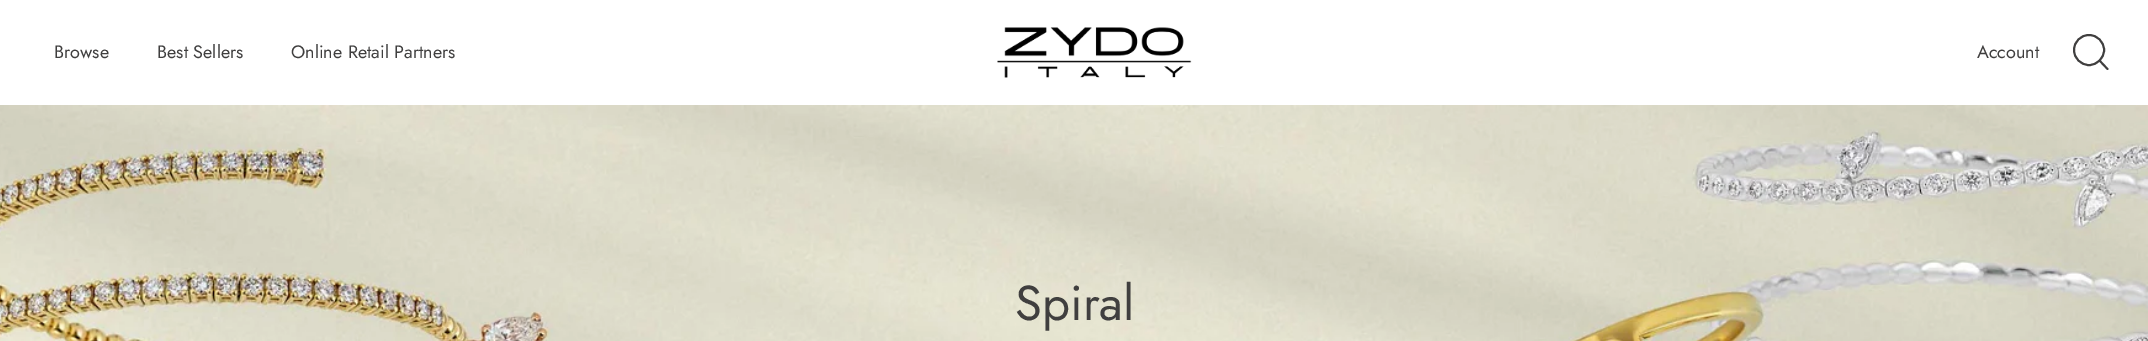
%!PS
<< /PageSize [2148 341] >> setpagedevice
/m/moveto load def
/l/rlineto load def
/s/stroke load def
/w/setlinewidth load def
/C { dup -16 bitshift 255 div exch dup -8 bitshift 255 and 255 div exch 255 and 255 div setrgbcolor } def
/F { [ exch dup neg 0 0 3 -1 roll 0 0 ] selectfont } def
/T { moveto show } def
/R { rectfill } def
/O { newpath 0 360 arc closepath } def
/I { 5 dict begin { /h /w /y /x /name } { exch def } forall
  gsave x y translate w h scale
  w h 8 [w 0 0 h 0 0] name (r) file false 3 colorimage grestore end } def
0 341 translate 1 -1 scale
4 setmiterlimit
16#FFFFFF C
0 0 2148 341 R
/Jost-Regular 18 F
16#403F3F C
(Browse) 54 58 T
(Best Sellers) 157 58 T
(Online Retail Partners) 291 58 T
(1.rgb) 997 27 195 51 I
(Account) 1977 58 T
1.9 w
2089 50 15 O s
1 setlinecap
1 setlinejoin
2107.5 69 m -8 -8.5 l s
(2.rgb) 0 105 2148 236 I
/Jost-Regular 49 F
(Spiral) 1015 320 T
showpage
